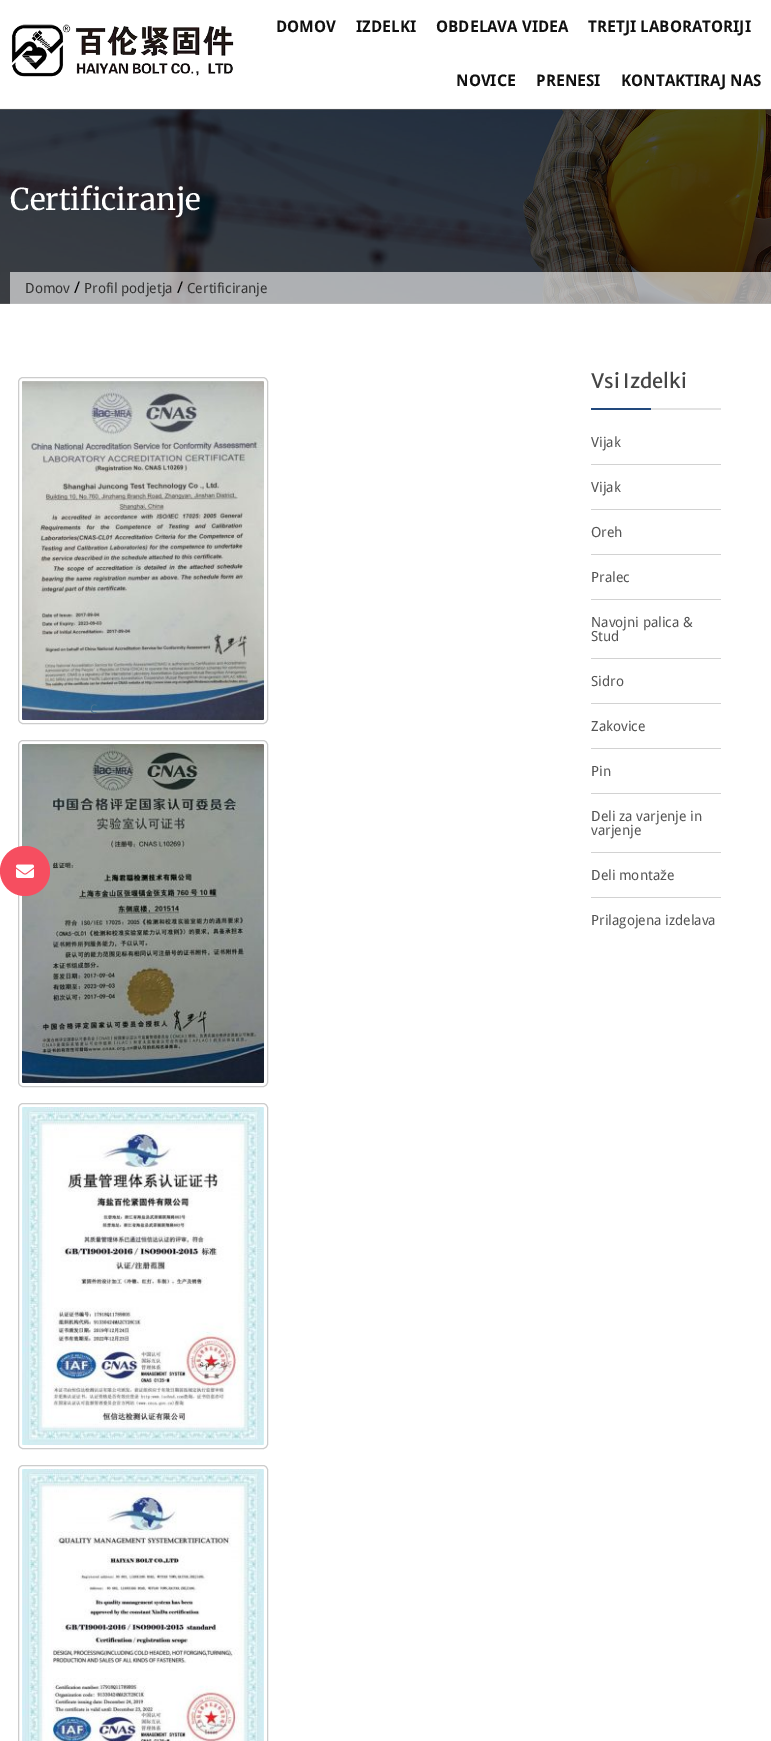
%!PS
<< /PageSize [771 1741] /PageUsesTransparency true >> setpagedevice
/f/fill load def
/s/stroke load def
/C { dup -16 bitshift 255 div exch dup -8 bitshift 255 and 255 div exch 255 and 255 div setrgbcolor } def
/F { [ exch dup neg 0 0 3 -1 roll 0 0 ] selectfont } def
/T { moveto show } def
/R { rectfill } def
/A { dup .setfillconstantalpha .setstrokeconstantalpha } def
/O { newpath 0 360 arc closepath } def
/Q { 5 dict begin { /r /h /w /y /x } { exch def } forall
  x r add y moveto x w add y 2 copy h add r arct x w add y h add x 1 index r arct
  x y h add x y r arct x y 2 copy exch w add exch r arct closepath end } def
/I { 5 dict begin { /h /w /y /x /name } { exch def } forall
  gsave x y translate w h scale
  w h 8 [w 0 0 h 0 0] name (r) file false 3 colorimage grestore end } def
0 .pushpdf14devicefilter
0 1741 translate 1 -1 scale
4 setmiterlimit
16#FFFFFF C
0 0 771 1741 R
16#F6F6F6 C
0 108 771 1 R
(1.rgb) 11 24 223 53 I
/DroidSans-Bold 16 F
16#101010 C
(DOMOV) 276 32 T
(IZDELKI) 356 32 T
(OBDELAVA VIDEA) 436 32 T
(TRETJI LABORATORIJI) 588 32 T
(NOVICE) 456 86 T
(PRENESI) 536 86 T
(KONTAKTIRAJ NAS) 621 86 T
(2.rgb) 0 109 771 195 I
/Merriweather-Regular 30 F
16#FFFFFF C
(Certificiranje) 10 210 T
0.6 A
10 272 761 32 R
/DroidSans-Regular 14 F
1 A
16#333333 C
(Domov) 25 293 T
/DroidSans-Regular 16 F
16#000000 C
(/) 74 293 T
/DroidSans-Regular 14 F
16#333333 C
(Profil podjetja) 84 293 T
/DroidSans-Regular 16 F
16#000000 C
(/) 177 293 T
/DroidSans-Regular 14 F
16#333333 C
(Certificiranje) 187 293 T
16#CCCCCC C
18.5 377.5 249 346 4.5 Q s
(3.rgb) 22 381 242 339 I
/DroidSans-Regular 12 F
16#4C7292 C
(C) 90 713 T
16#CCCCCC C
18.5 740.5 249 346 4.5 Q s
(4.rgb) 22 744 242 339 I
18.5 1103.5 249 345 4.5 Q s
(5.rgb) 22 1107 242 338 I
18.5 1465.5 249 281 4.5 Q s
(6.rgb) 22 1469 242 272 I
16#E3E3E3 C
651 408 70 2 R
/MerriweatherSans-Regular 20 F
16#454545 C
(Vsi Izdelki) 591 388 T
16#22497D C
591 408 60 2 R
16#D2D2D2 C
591 464 130 1 R
/DroidSans-Regular 14 F
16#555555 C
(Vijak) 591 447 T
16#D2D2D2 C
591 509 130 1 R
16#555555 C
(Vijak) 591 492 T
16#D2D2D2 C
591 554 130 1 R
16#555555 C
(Oreh) 591 537 T
16#D2D2D2 C
591 599 130 1 R
16#555555 C
(Pralec) 591 582 T
16#D2D2D2 C
591 658 130 1 R
16#555555 C
(Navojni palica &) 591 627 T
(Stud) 591 641 T
16#D2D2D2 C
591 703 130 1 R
16#555555 C
(Sidro) 591 686 T
16#D2D2D2 C
591 748 130 1 R
16#555555 C
(Zakovice) 591 731 T
16#D2D2D2 C
591 793 130 1 R
16#555555 C
(Pin) 591 776 T
16#D2D2D2 C
591 852 130 1 R
16#555555 C
(Deli za varjenje in) 591 821 T
(varjenje) 591 835 T
16#D2D2D2 C
591 897 130 1 R
16#555555 C
(Deli monta) 591 880 T
/LiberationSans-Regular 14 F
(ž) 660 880 T
/DroidSans-Regular 14 F
(e) 667 880 T
(Prilagojena izdelava) 591 925 T
16#F64E60 C
25 871 25 O f
(7.rgb) 16 864 18 14 I
.poppdf14devicefilter showpage
